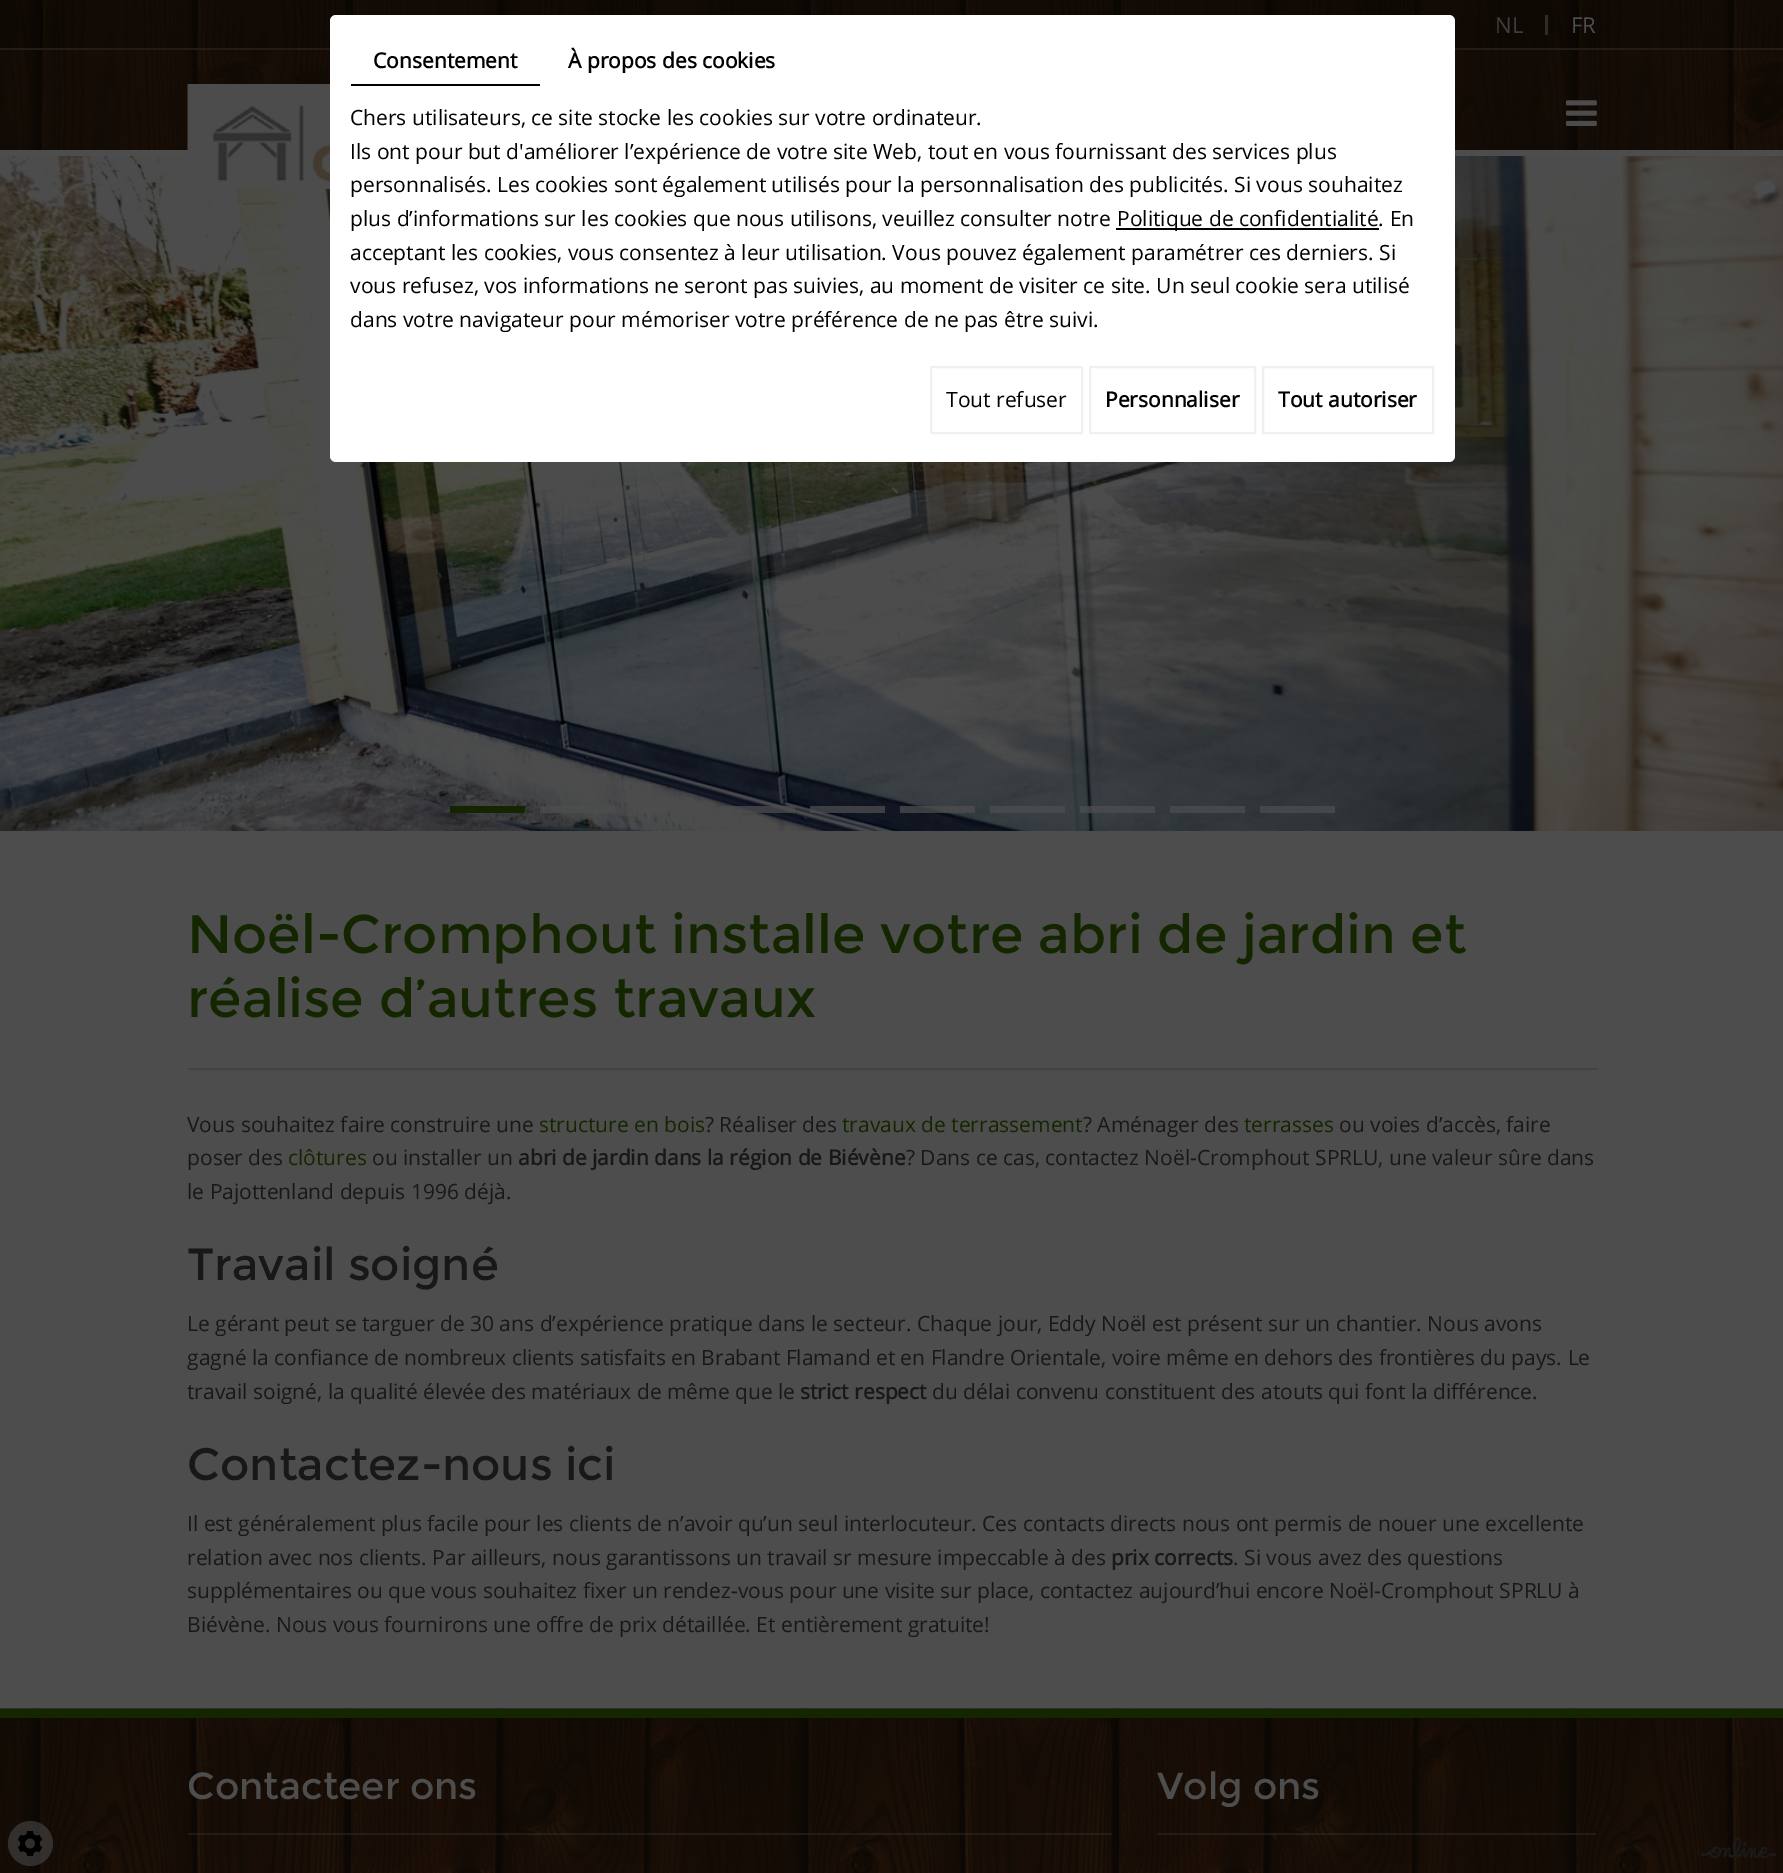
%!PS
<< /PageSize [1783 1873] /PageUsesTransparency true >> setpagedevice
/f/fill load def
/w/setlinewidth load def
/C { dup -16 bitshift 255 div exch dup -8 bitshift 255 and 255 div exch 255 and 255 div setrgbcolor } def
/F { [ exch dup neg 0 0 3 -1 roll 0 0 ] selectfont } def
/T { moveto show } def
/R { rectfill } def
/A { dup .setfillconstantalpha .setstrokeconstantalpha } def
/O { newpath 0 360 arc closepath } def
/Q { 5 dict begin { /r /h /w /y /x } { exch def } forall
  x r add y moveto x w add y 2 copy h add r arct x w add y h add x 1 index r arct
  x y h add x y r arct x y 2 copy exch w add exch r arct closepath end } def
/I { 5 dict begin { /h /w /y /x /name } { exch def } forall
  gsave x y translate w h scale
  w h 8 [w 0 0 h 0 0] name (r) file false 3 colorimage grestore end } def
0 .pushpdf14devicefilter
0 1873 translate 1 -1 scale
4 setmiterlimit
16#4D4D4D C
0 0 1783 1873 R
(1.rgb) 0 0 1783 150 I
0.2 A
16#000000 C
0 0 1783 48 R
1 A
16#221B17 C
0 48 1783 2 R
/OpenSans-Regular 22 F
16#3D3D3D C
(NL) 1495 33 T
0.5 A
16#4D4D4D C
1545 15 3 20 R
1 A
(FR) 1571 33 T
(4.rgb) 0 156 1783 675 I
(2.rgb) 187 84 143 105 I
(3.rgb) 1566 100 31 26 I
(5.rgb) 872 472 41 18 I
16#132600 C
450 806 75 7 R
0.75 A
16#4D4D4D C
540 806 75 7 R
630 806 40 7 R
720 806 75 7 R
810 806 75 7 R
900 806 75 7 R
990 806 75 7 R
1080 806 75 7 R
1170 806 75 7 R
1260 806 75 7 R
1 A
16#434343 C
188 1068 1410 2 R
/Montserrat-Regular 54 F
16#132600 C
(Noël-Cromphout installe votre abri de jardin et) 187 953 T
(réalise d’autres travaux) 187 1017 T
/OpenSans-Regular 21 F
16#181818 C
(Vous souhaitez faire construire une) 187 1132 T
16#132600 C
(structure en bois) 539 1132 T
16#181818 C
(? Réaliser des) 705 1132 T
16#132600 C
(travaux de terrassement) 842 1132 T
16#181818 C
(? Aménager des) 1083 1132 T
16#132600 C
(terrasses) 1244 1132 T
16#181818 C
(ou voies d’accès, faire) 1339 1132 T
(poser des) 187 1165 T
16#132600 C
(clôtures) 288 1165 T
16#181818 C
(ou installer un) 372 1165 T
/OpenSans-Bold 21 F
(abri de jardin dans la région de Biévène) 518 1165 T
/OpenSans-Regular 21 F
(? Dans ce cas, contactez Noël-Cromphout SPRLU, une valeur sûre dans) 906 1165 T
(le Pajottenland depuis 1996 déjà.) 187 1199 T
/Montserrat-Regular 45 F
(Travail soigné) 187 1280 T
/OpenSans-Regular 21 F
(Le gérant peut se targuer de 30 ans d’expérience pratique dans le secteur. Chaque jour, Eddy Noël est présent sur un chantier. Nous avons) 187 1331 T
(gagné la confiance de nombreux clients satisfaits en Brabant Flamand et en Flandre Orientale, voire même en dehors des frontières du pays. Le) 187 1365 T
(travail soigné, la qualité élevée des matériaux de même que le) 187 1399 T
/OpenSans-Bold 21 F
(strict respect) 800 1399 T
/OpenSans-Regular 21 F
(du délai convenu constituent des atouts qui font la différence.) 932 1399 T
/Montserrat-Regular 45 F
(Contactez-nous ici) 187 1480 T
/OpenSans-Regular 21 F
(Il est généralement plus facile pour les clients de n’avoir qu’un seul interlocuteur. Ces contacts directs nous ont permis de nouer une excellente) 187 1531 T
(relation avec nos clients. Par ailleurs, nous garantissons un travail sr mesure impeccable à des) 187 1565 T
/OpenSans-Bold 21 F
(prix corrects) 1111 1565 T
/OpenSans-Regular 21 F
(. Si vous avez des questions) 1233 1565 T
(supplémentaires ou que vous souhaitez fixer un rendez-vous pour une visite sur place, contactez aujourd’hui encore Noël-Cromphout SPRLU à) 187 1598 T
(Biévène. Nous vous fournirons une offre de prix détaillée. Et entièrement gratuite!) 187 1632 T
(6.rgb) 0 1708 1783 165 I
16#132600 C
0 1709 1783 9 R
0.25 A
16#4D4D4D C
188 1833 924 2 R
/Montserrat-Regular 37.5 F
1 A
(Contacteer ons) 187 1799 T
0.25 A
1157 1833 439 2 R
1 A
(Volg ons) 1157 1799 T
16#FFFFFF C
330 15 1125 447 6 Q f
16#000000 C
351 84 189 2 R
/OpenSans-Bold 21 F
(Consentement) 373 68 T
(À propos des cookies) 568 68 T
/OpenSans-Regular 21 F
(Chers utilisateurs, ce site stocke les cookies sur votre ordinateur.) 350 125 T
(Ils ont pour but d'améliorer l’expérience de votre site Web, tout en vous fournissant des services plus) 350 159 T
(personnalisés. Les cookies sont également utilisés pour la personnalisation des publicités. Si vous souhaitez) 350 192 T
(plus d’informations sur les cookies que nous utilisons, veuillez consulter notre) 350 226 T
1116 228 263 2 R
(Politique de confidentialité. En) 1117 226 T
(acceptant les cookies, vous consentez à leur utilisation. Vous pouvez également paramétrer ces derniers. Si) 350 260 T
(vous refusez, vos informations ne seront pas suivies, au moment de visiter ce site. Un seul cookie sera utilisé) 350 293 T
(dans votre navigateur pour mémoriser votre préférence de ne pas être suivi.) 350 327 T
16#F0F0F0 C
2 w
931 367 151 66 rectstroke
16#000000 C
(Tout refuser) 946 407 T
16#F0F0F0 C
1090 367 165 66 rectstroke
/OpenSans-Bold 21 F
16#000000 C
(Personnaliser) 1105 407 T
16#F0F0F0 C
1263 367 170 66 rectstroke
16#000000 C
(Tout autoriser) 1278 407 T
0.54 A
16#4D4D4D C
30.5 1843.5 22.5 O f
1 A
(7.rgb) 17 1831 26 25 I
(8.rgb) 1701 1837 76 22 I
.poppdf14devicefilter showpage
